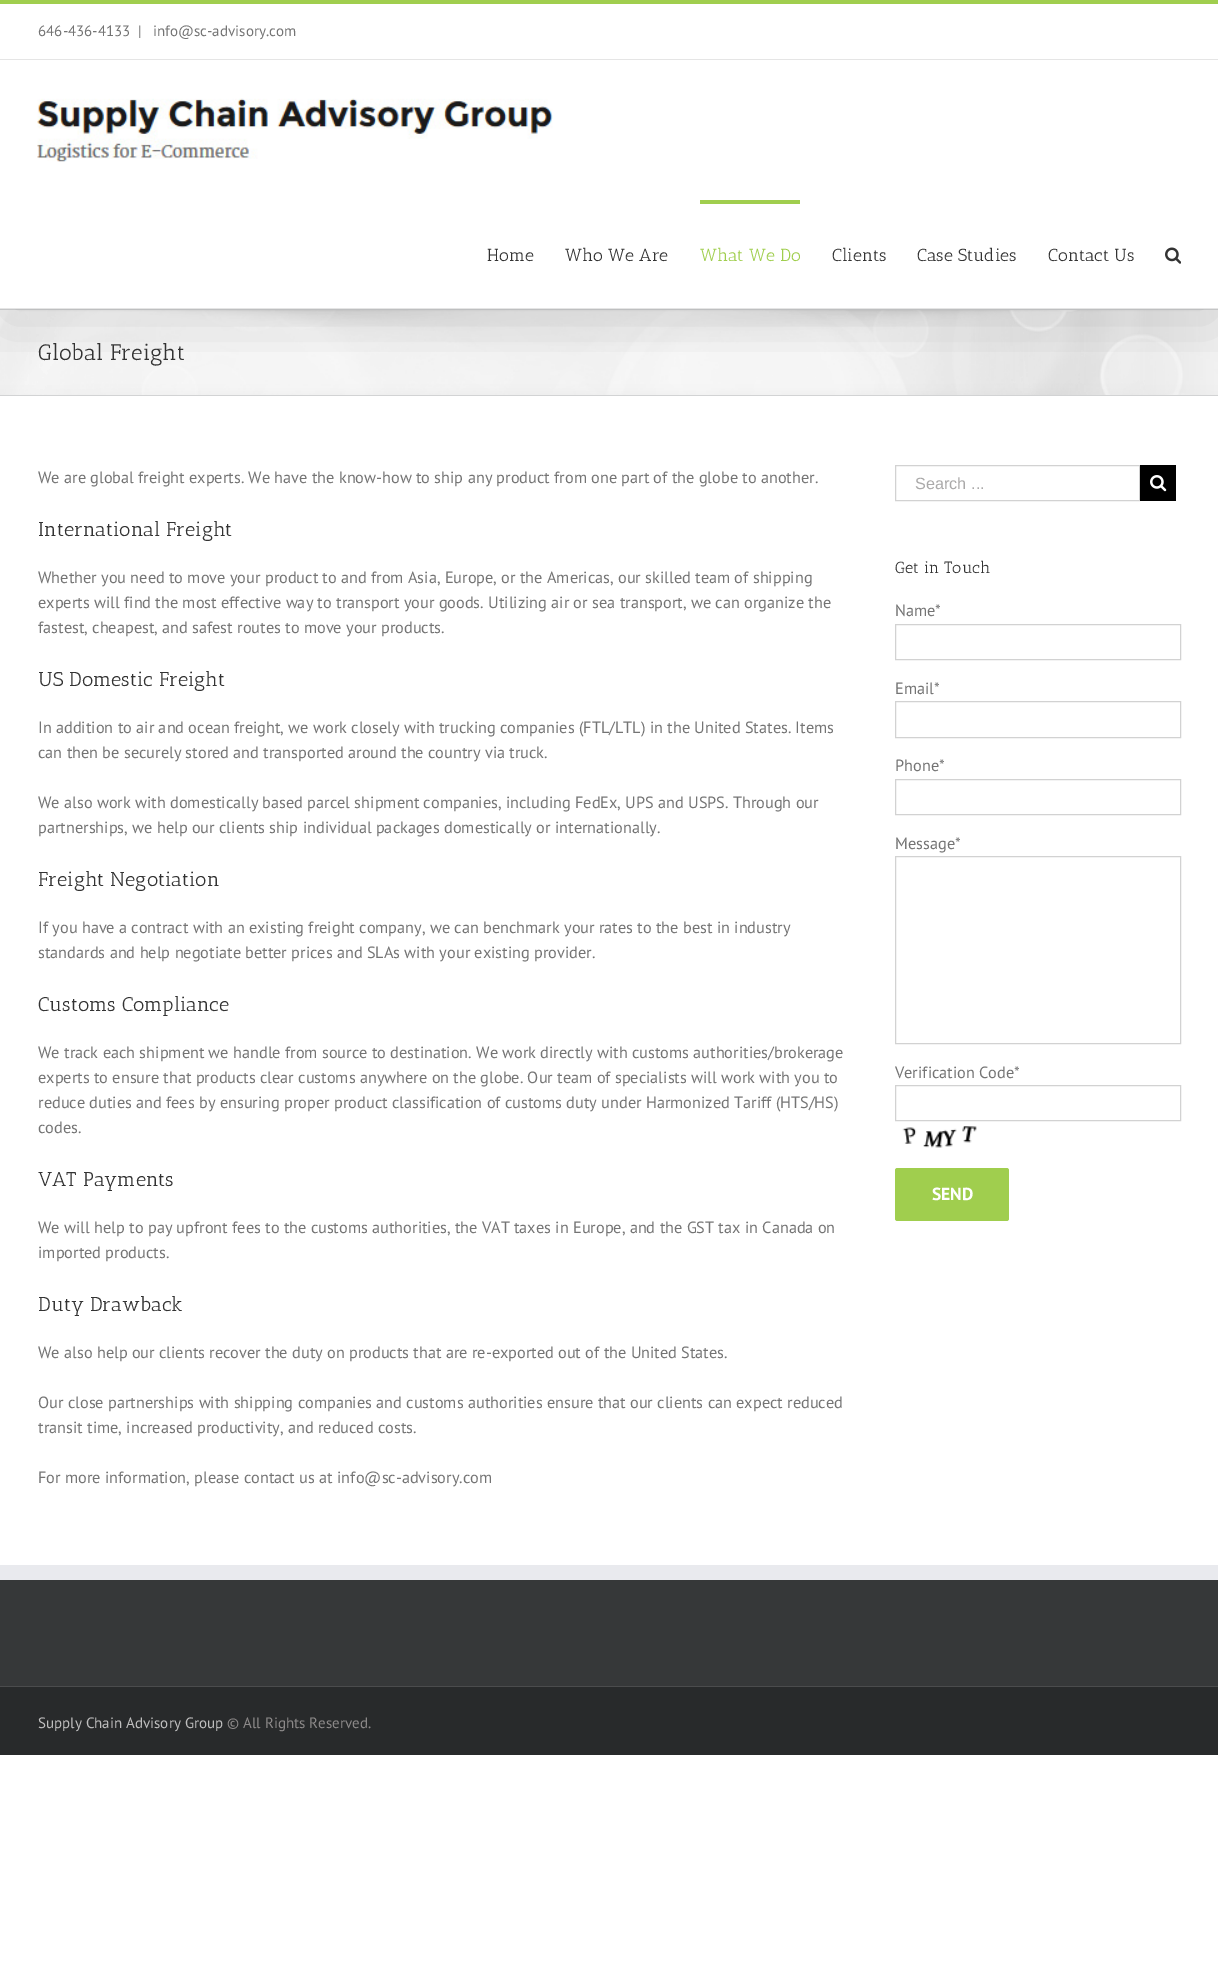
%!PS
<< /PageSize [1218 1969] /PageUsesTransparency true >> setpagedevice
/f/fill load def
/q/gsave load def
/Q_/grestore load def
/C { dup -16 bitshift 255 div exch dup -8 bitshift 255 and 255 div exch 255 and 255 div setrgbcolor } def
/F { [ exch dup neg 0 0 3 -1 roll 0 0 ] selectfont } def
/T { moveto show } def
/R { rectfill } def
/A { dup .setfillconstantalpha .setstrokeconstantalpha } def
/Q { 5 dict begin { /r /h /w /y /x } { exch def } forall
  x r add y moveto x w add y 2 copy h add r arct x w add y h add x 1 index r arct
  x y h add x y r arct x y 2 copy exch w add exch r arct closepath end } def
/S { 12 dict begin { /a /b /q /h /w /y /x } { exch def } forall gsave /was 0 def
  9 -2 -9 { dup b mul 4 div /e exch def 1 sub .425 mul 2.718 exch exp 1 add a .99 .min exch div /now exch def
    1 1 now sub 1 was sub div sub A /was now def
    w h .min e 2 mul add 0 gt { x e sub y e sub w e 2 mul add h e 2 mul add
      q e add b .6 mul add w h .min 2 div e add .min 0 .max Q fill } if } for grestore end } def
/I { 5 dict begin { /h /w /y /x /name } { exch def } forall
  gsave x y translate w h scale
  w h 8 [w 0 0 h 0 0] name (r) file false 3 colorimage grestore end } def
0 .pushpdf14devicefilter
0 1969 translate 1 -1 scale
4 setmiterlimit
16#FFFFFF C
0 0 1218 1969 R
16#F6F6F6 C
0 310 1218 85 R
(3.rgb) 0 310 1218 85 I
16#D2D3D4 C
0 309 1218 1 R
0 395 1218 1 R
q
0 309 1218 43 rectclip
16#000000 C
3 15 1213 304 0 31 .14 S
Q_
16#A0CE4E C
0 0 1218 4 R
16#E5E5E5 C
0 59 1218 1 R
/PTSans-Regular 15 F
16#747474 C
(646-436-4133) 38 36 T
(|) 138 36 T
(info@sc-advisory.com) 153 36 T
16#E5E5E5 C
0 308 1218 1 R
(1.rgb) 37 98 516 64 I
/AnticSlab-Regular 17.5 F
16#333333 C
(Home) 487 261 T
(Who We Are) 565 261 T
16#A0CE4E C
700 200 100 4 R
(What We Do) 700 261 T
16#333333 C
(Clients) 832 261 T
(Case Studies) 917 261 T
(Contact Us) 1048 261 T
(2.rgb) 1165 247 16 17 I
/AnticSlab-Regular 22.5 F
(Global Freight) 38 360 T
/PTSans-Regular 16.25 F
16#747474 C
(We are global freight experts. We have the know-how to ship any product from one part of the globe to another.) 38 483 T
/AnticSlab-Regular 20 F
16#333333 C
(International Freight) 38 536 T
/PTSans-Regular 16.25 F
16#747474 C
(Whether you need to move your product to and from Asia, Europe, or the Americas, our skilled team of shipping) 38 583 T
(experts will find the most effective way to transport your goods. Utilizing air or sea transport, we can organize the) 38 608 T
(fastest, cheapest, and safest routes to move your products.) 38 633 T
/AnticSlab-Regular 20 F
16#333333 C
(US Domestic Freight) 38 686 T
/PTSans-Regular 16.25 F
16#747474 C
(In addition to air and ocean freight, we work closely with trucking companies \(FTL/LTL\) in the United States. Items) 38 733 T
(can then be securely stored and transported around the country via truck.) 38 758 T
(We also work with domestically based parcel shipment companies, including FedEx, UPS and USPS. Through our) 38 808 T
(partnerships, we help our clients ship individual packages domestically or internationally.) 38 833 T
/AnticSlab-Regular 20 F
16#333333 C
(Freight Negotiation) 38 886 T
/PTSans-Regular 16.25 F
16#747474 C
(If you have a contract with an existing freight company, we can benchmark your rates to the best in industry) 38 933 T
(standards and help negotiate better prices and SLAs with your existing provider.) 38 958 T
/AnticSlab-Regular 20 F
16#333333 C
(Customs Compliance) 38 1011 T
/PTSans-Regular 16.25 F
16#747474 C
(We track each shipment we handle from source to destination. We work directly with customs authorities/brokerage) 38 1058 T
(experts to ensure that products clear customs anywhere on the globe. Our team of specialists will work with you to) 38 1083 T
(reduce duties and fees by ensuring proper product classification of customs duty under Harmonized Tariff \(HTS/HS\)) 38 1108 T
(codes.) 38 1133 T
/AnticSlab-Regular 20 F
16#333333 C
(VAT Payments) 38 1186 T
/PTSans-Regular 16.25 F
16#747474 C
(We will help to pay upfront fees to the customs authorities, the VAT taxes in Europe, and the GST tax in Canada on) 38 1233 T
(imported products.) 38 1258 T
/AnticSlab-Regular 20 F
16#333333 C
(Duty Drawback) 38 1311 T
/PTSans-Regular 16.25 F
16#747474 C
(We also help our clients recover the duty on products that are re-exported out of the United States.) 38 1358 T
(Our close partnerships with shipping companies and customs authorities ensure that our clients can expect reduced) 38 1408 T
(transit time, increased productivity, and reduced costs.) 38 1433 T
(For more information, please contact us at info@sc-advisory.com) 38 1483 T
16#D2D2D2 C
895.5 465.5 244 35 rectstroke
/LiberationSans-Regular 16.25 F
16#AAA9A9 C
(Search ...) 915 489 T
16#000000 C
1140 465 36 36 R
(4.rgb) 1150 475 17 17 I
/AnticSlab-Regular 16.25 F
16#333333 C
(Get in Touch) 895 573 T
/PTSans-Regular 16.25 F
16#747474 C
(Name*) 895 616 T
16#D2D2D2 C
895.5 624.5 285 35 rectstroke
16#747474 C
(Email*) 895 694 T
16#D2D2D2 C
895.5 701.5 285 36 rectstroke
16#747474 C
(Phone*) 895 771 T
16#D2D2D2 C
895.5 779.5 285 35 rectstroke
16#747474 C
(Message*) 895 849 T
16#D2D2D2 C
895.5 856.5 285 187 rectstroke
16#747474 C
(Verification Code*) 895 1078 T
16#D2D2D2 C
895.5 1085.5 285 35 rectstroke
(5.rgb) 902 1126 75 22 I
16#A0CE4E C
895 1168 114 53 2.5 Q f
/PTSans-Bold 17.5 F
16#FFFFFF C
(SEND) 932 1200 T
16#363839 C
0 1580 1218 106 R
16#E9EAEE C
0 1565 1218 15 R
16#282A2B C
0 1687 1218 68 R
16#4B4C4D C
0 1686 1218 1 R
/PTSans-Regular 15 F
16#BFBFBF C
(Supply Chain Advisory Group) 38 1728 T
16#8C8989 C
(© All Rights Reserved.) 227 1728 T
.poppdf14devicefilter showpage
